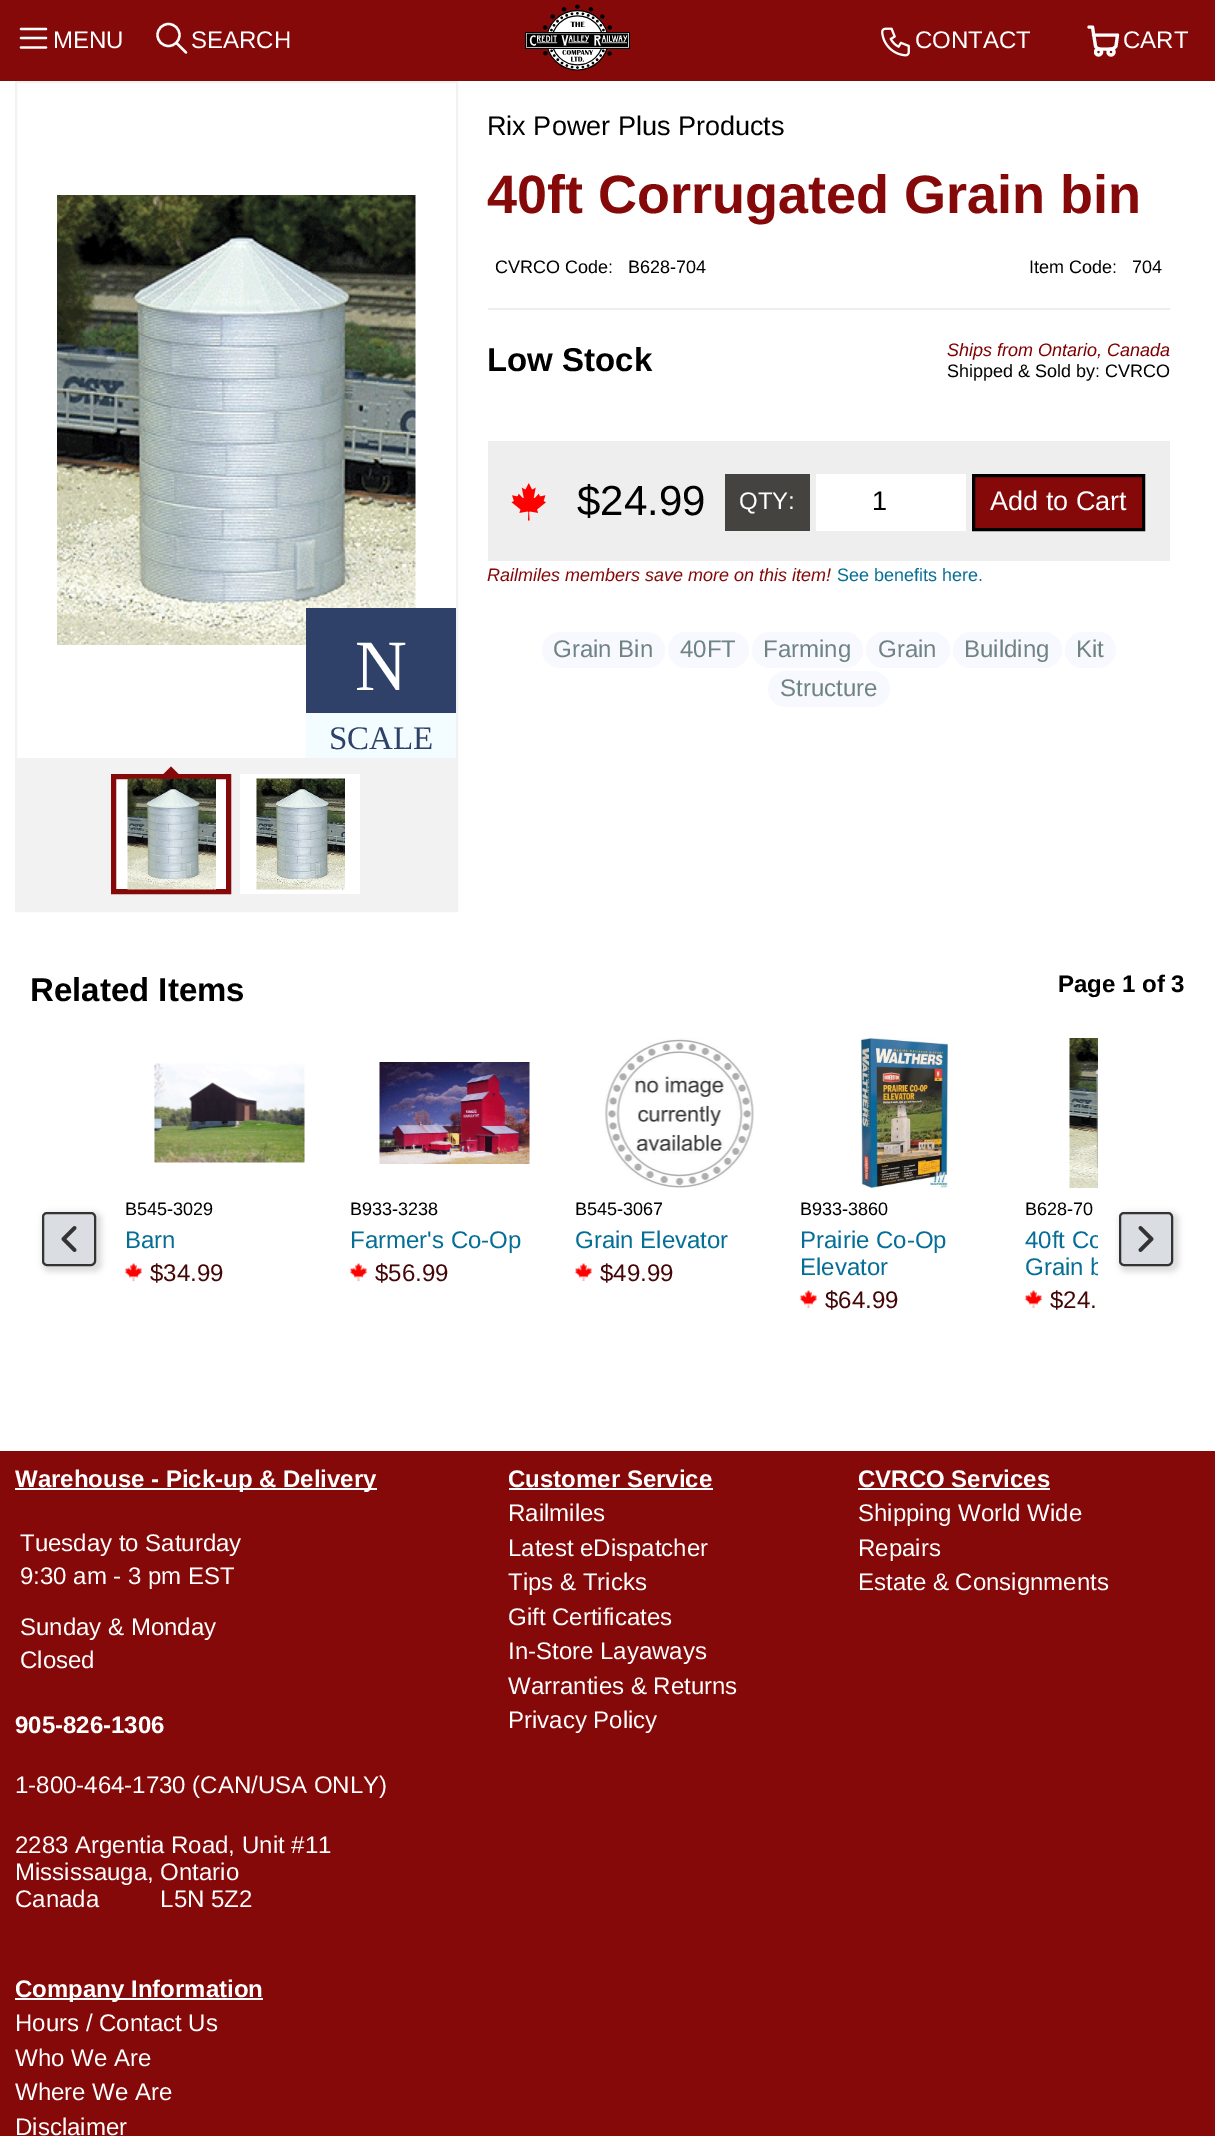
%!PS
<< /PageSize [1215 2136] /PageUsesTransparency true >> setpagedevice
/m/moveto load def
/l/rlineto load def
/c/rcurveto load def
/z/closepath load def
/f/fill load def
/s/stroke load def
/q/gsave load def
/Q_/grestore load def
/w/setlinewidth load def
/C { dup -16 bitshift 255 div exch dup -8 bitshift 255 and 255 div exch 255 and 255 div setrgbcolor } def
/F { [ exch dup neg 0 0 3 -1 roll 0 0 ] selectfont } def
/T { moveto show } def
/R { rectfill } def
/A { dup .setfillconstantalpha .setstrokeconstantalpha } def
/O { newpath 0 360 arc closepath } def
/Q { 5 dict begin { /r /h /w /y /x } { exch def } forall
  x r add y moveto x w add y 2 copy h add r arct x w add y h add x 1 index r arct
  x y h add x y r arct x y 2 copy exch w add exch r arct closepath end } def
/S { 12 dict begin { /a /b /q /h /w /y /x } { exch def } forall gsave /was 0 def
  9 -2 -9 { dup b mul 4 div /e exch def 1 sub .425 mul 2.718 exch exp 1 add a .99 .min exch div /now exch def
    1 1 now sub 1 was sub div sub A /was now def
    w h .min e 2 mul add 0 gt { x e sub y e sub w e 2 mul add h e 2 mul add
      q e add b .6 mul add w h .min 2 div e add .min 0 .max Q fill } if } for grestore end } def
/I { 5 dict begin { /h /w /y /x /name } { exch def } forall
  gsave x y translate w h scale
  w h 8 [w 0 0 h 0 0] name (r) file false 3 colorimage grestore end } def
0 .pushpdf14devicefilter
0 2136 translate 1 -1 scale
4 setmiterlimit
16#FFFFFF C
0 0 1215 2136 R
16#860909 C
0 0 1215 81 R
16#FFFFFF C
2.3 w
1 setlinecap
1 setlinejoin
21 29 m 25 0 l 21 38 m 25 0 l 21 47.5 m 25 0 l s
/LiberationSans-Regular 24 F
(MENU) 53 48 T
0 setlinecap
0 setlinejoin
168.5 35 11 O s
1 setlinecap
1 setlinejoin
186 52.5 m -9.5 -9.5 l s
(SEARCH) 191 48 T
(1.rgb) 525 4 105 67 I
(2.rgb) 881 27 29 30 I
(CONTACT) 915 48 T
3.1 w
0 setlinecap
0 setlinejoin
1098.5 52 3 O s
1111 52 3 O s
1 setlinecap
1 setlinejoin
1089 27 m 3.5 0 l 3 19 l .5 2 2.5 3 4.5 3 c 11 0 l 2 0 4 -1 5 -3 c 1.5 -11 l -24 0 l s
(CART) 1123 48 T
16#F2F2F2 C
2 w
0 setlinecap
0 setlinejoin
16 82 441 829 rectstroke
(3.rgb) 57 195 359 450 I
16#2F4168 C
306 608 150 105 R
16#F3FCFF C
306 713 150 45 R
/LiberationSerif-Regular 72 F
16#FFFFFF C
(N) 355 690 T
/LiberationSerif-Regular 33 F
16#2F4168 C
(SCALE) 329 749 T
16#F2F2F2 C
17 758 439 152 R
16#FFFFFF C
113.5 776.5 m 115 0 l 0 115 l -115 0 l z q f Q_
16#860909 C
5 w
s
(4.rgb) 127 778 89 112 I
183 778.5 m -24 0 l 12 -12 l z f
16#FFFFFF C
240 774 120 120 R
(5.rgb) 256 778 89 112 I
/LiberationSans-Regular 27 F
16#000000 C
(Rix Power Plus Products) 487 135 T
/LiberationSans-Bold 54 F
16#860909 C
(40ft Corrugated Grain bin) 487 213 T
/LiberationSans-Regular 18 F
16#000000 C
(CVRCO Code:) 495 273 T
(B628-704) 628 273 T
(Item Code:) 1029 273 T
(704) 1132 273 T
16#EEEEEE C
488 308 682 2 R
/LiberationSans-Bold 33 F
16#000000 C
(Low Stock) 487 371 T
/LiberationSans-Italic 18 F
16#800000 C
(Ships from Ontario, Canada) 947 356 T
/LiberationSans-Regular 18 F
16#000000 C
(Shipped & Sold by: CVRCO) 947 377 T
16#EEEEEE C
488 441 682 120 R
(6.rgb) 511 483 35 38 I
/LiberationSans-Regular 42 F
16#000000 C
($24.99) 577 515 T
16#454340 C
725 474 85 57 R
/LiberationSans-Regular 24 F
16#FFFFFF C
(QTY:) 739 509 T
816 474 150 57 R
/LiberationSans-Regular 27 F
16#000000 C
(1) 872 510 T
16#860909 C
973.5 475.5 m 170 0 l 0 54 l -170 0 l z q f Q_
16#000000 C
3 w
s
16#FFFFFF C
(Add to Cart) 990 510 T
/LiberationSans-Italic 18 F
16#860909 C
(Railmiles members save more on this item!) 487 581 T
/LiberationSans-Regular 18 F
16#056E97 C
(See benefits here.) 837 581 T
16#F8F8FF C
542 632 123 36 18 Q f
/LiberationSans-Regular 24 F
16#6F8385 C
(Grain Bin) 553 657 T
16#F8F8FF C
668 632 81 36 18 Q f
16#6F8385 C
(40FT) 680 657 T
16#F8F8FF C
752 632 111 36 18 Q f
16#6F8385 C
(Farming) 763 657 T
16#F8F8FF C
866 632 84 36 18 Q f
16#6F8385 C
(Grain) 878 657 T
16#F8F8FF C
953 632 109 36 18 Q f
16#6F8385 C
(Building) 964 657 T
16#F8F8FF C
1065 632 51 36 18 Q f
16#6F8385 C
(Kit) 1076 657 T
16#F8F8FF C
768 671 122 36 18 Q f
16#6F8385 C
(Structure) 780 696 T
/LiberationSans-Bold 33 F
16#000000 C
(Related Items) 30 1001 T
/LiberationSans-Bold 24 F
(Page 1 of 3) 1058 992 T
42 1212 60 60 8 3 .12 S
16#DADDE2 C
43 1213 52 52 4 Q q f Q_
16#333333 C
2 w
s
3.8 w
1 setlinecap
1 setlinejoin
74.5 1228 m -11 11 l 11 11 l s
(7.rgb) 154 1063 151 100 I
/LiberationSans-Regular 18 F
16#000000 C
(B545-3029) 125 1215 T
/LiberationSans-Regular 24 F
16#056E97 C
(Barn) 125 1248 T
(8.rgb) 124 1263 19 18 I
16#440606 C
($34.99) 150 1281 T
(9.rgb) 379 1062 151 102 I
/LiberationSans-Regular 18 F
16#000000 C
(B933-3238) 350 1215 T
/LiberationSans-Regular 24 F
16#056E97 C
(Farmer's Co-Op) 350 1248 T
(10.rgb) 349 1263 19 18 I
16#440606 C
($56.99) 375 1281 T
(11.rgb) 604 1038 150 150 I
/LiberationSans-Regular 18 F
16#000000 C
(B545-3067) 575 1215 T
/LiberationSans-Regular 24 F
16#056E97 C
(Grain Elevator) 575 1248 T
(8.rgb) 574 1263 19 18 I
16#440606 C
($49.99) 600 1281 T
(12.rgb) 861 1038 87 150 I
/LiberationSans-Regular 18 F
16#000000 C
(B933-3860) 800 1215 T
/LiberationSans-Regular 24 F
16#056E97 C
(Prairie Co-Op) 800 1248 T
(Elevator) 800 1275 T
(8.rgb) 799 1290 19 18 I
16#440606 C
($64.99) 825 1308 T
(13.rgb) 1069 1038 29 150 I
/LiberationSans-Regular 18 F
16#000000 C
(B628-70) 1025 1215 T
q
1025 1227 73 54 rectclip
/LiberationSans-Regular 24 F
16#056E97 C
(40ft Co) 1025 1248 T
(Grain b) 1025 1275 T
Q_
(8.rgb) 1024 1290 19 18 I
/LiberationSans-Regular 24 F
16#440606 C
($24.) 1050 1308 T
16#000000 C
1119 1212 60 60 8 3 .12 S
16#DADDE2 C
1120 1213 52 52 4 Q q f Q_
16#333333 C
2 w
0 setlinecap
0 setlinejoin
s
3.8 w
1 setlinecap
1 setlinejoin
1140.5 1228 m 11 11 l -11 11 l s
16#860909 C
0 1451 1215 685 R
16#FFFFFF C
15 1488 362 2 R
/LiberationSans-Bold 24 F
(Warehouse - Pick-up & Delivery) 15 1487 T
/LiberationSans-Regular 24 F
(Tuesday to Saturday) 20 1551 T
(9:30 am - 3 pm EST) 20 1584 T
(Sunday & Monday) 20 1635 T
(Closed) 20 1668 T
/LiberationSans-Bold 24 F
(905-826-1306) 15 1733 T
/LiberationSans-Regular 24 F
(1-800-464-1730 \(CAN/USA ONLY\)) 15 1793 T
(2283 Argentia Road, Unit #11) 15 1853 T
(Mississauga, Ontario) 15 1880 T
(Canada      L5N 5Z2) 15 1907 T
/LiberationSans-Bold 24 F
(Customer Service) 508 1487 T
509 1488 204 2 R
/LiberationSans-Regular 24 F
(Railmiles) 508 1521 T
(Latest eDispatcher) 508 1556 T
(Tips & Tricks) 508 1590 T
(Gift Certificates) 508 1625 T
(In-Store Layaways) 508 1659 T
(Warranties & Returns) 508 1694 T
(Privacy Policy) 508 1728 T
/LiberationSans-Bold 24 F
(CVRCO Services) 858 1487 T
858 1488 192 2 R
/LiberationSans-Regular 24 F
(Shipping World Wide) 858 1521 T
(Repairs) 858 1556 T
(Estate & Consignments) 858 1590 T
15 1998 248 2 R
/LiberationSans-Bold 24 F
(Company Information) 15 1997 T
/LiberationSans-Regular 24 F
(Hours / Contact Us) 15 2031 T
(Who We Are) 15 2066 T
(Where We Are) 15 2100 T
(Disclaimer) 15 2135 T
.poppdf14devicefilter showpage
